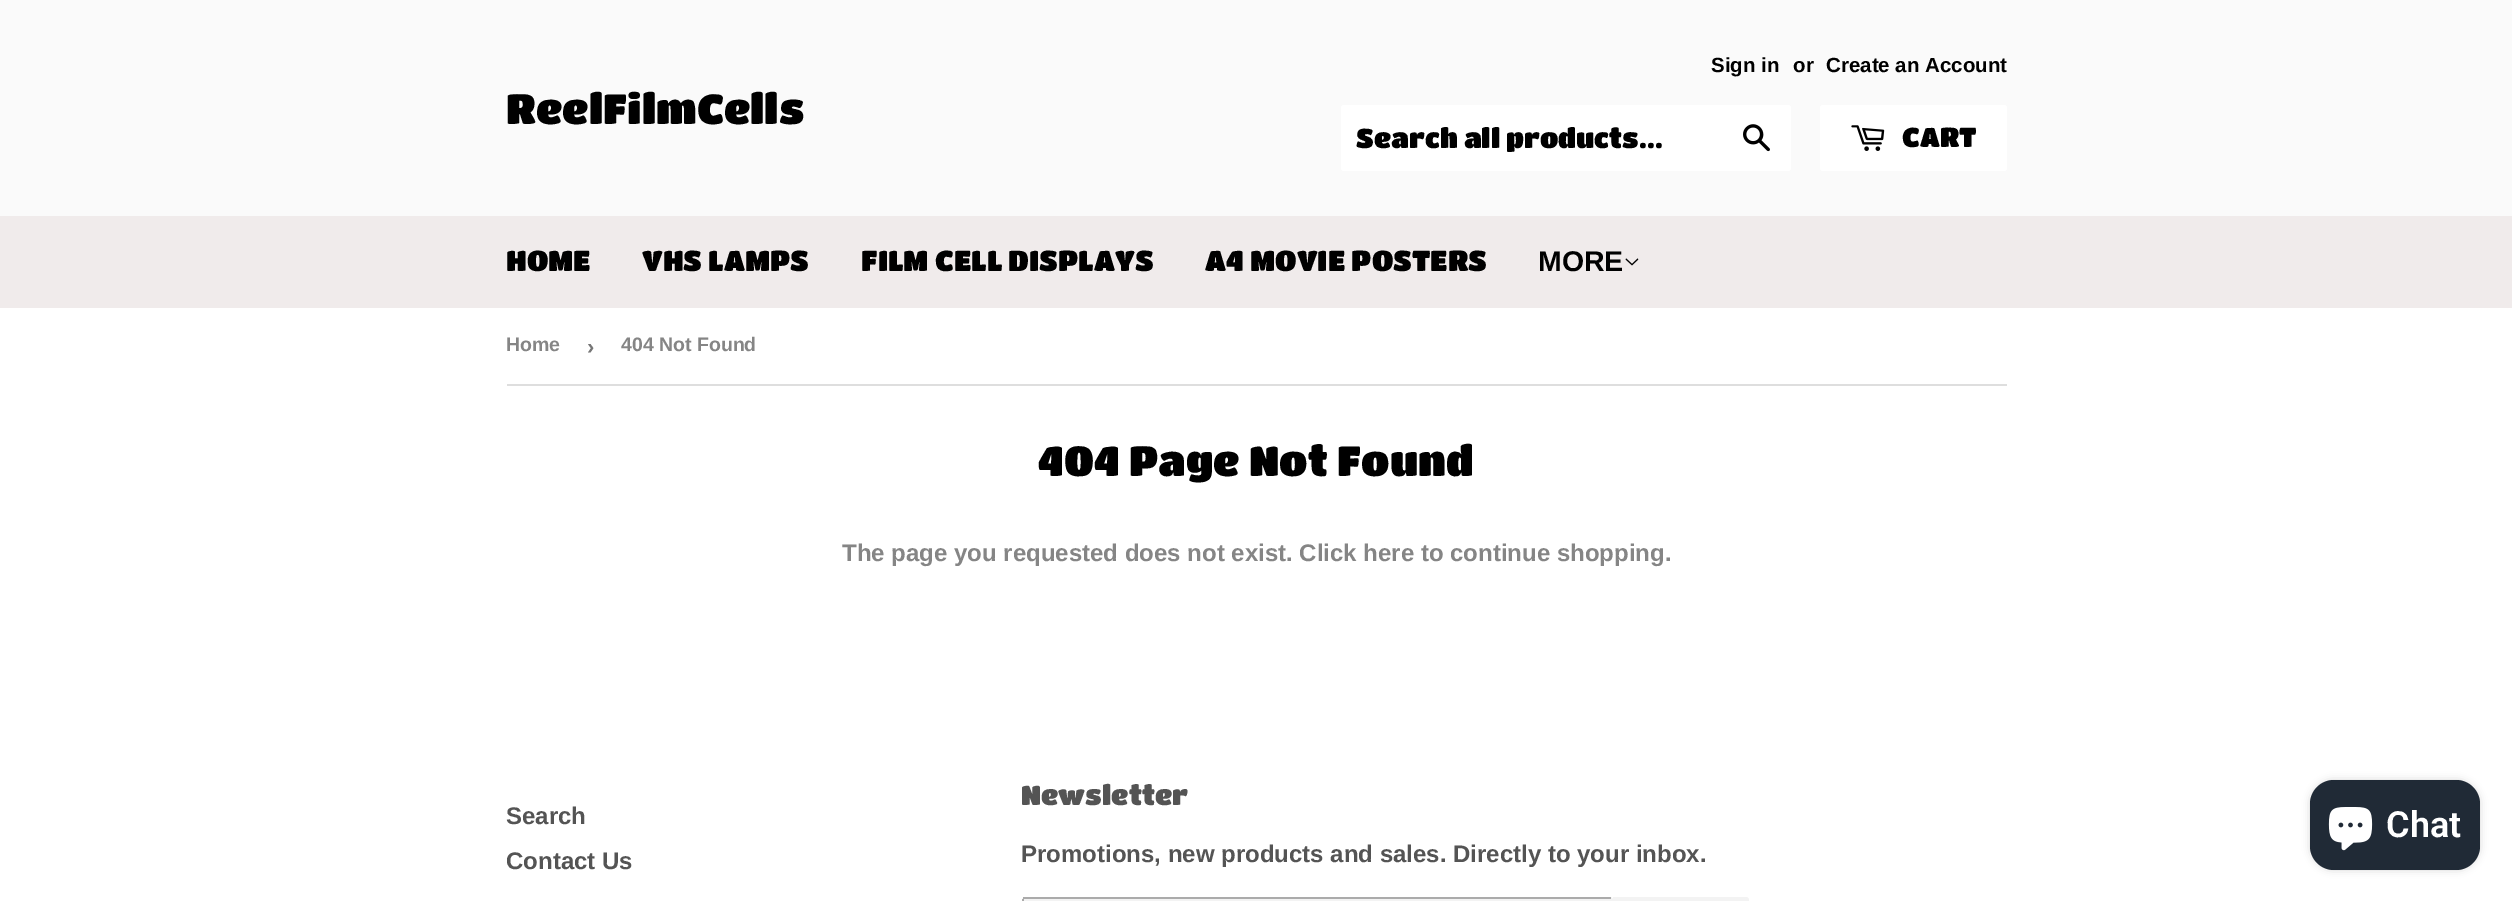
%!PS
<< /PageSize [2512 901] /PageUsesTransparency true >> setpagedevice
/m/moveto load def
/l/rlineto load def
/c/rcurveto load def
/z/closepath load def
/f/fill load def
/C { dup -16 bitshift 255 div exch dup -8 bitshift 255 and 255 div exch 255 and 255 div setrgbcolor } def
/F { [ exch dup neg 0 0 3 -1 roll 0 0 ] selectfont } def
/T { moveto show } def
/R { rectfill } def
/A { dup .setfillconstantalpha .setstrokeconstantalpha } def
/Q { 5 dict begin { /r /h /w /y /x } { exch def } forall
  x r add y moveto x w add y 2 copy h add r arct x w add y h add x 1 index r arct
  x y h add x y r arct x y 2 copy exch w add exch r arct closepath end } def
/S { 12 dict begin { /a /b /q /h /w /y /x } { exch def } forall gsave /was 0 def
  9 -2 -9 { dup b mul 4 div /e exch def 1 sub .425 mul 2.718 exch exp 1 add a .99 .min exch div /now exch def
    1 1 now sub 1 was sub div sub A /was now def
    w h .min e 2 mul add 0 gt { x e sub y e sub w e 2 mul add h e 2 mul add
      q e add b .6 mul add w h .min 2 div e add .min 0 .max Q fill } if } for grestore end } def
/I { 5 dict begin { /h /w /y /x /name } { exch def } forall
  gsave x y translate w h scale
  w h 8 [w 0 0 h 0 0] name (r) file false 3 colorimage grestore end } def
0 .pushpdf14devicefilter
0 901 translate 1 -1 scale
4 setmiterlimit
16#FFFFFF C
0 0 2512 901 R
16#FAFAFA C
0 0 2512 216 R
/TitanOne-Regular 41.5 F
16#000000 C
(ReelFilmCells) 506 124 T
/Arimo-Bold 20.5 F
(Sign in) 1711 72 T
(or) 1793 72 T
(Create an Account) 1826 72 T
16#FFFFFF C
1341 105 450 66 3 Q f
/TitanOne-Regular 27 F
16#000000 C
(Search all products...) 1356 148 T
(1.rgb) 1743 124 27 28 I
16#FFFFFF C
1820 105 187 66 3 Q f
(2.rgb) 1851 125 34 26 I
16#000000 C
(CART) 1902 147 T
16#F0EBEB C
0 216 2512 92 R
/TitanOne-Regular 28.5 F
16#000000 C
(HOME) 506 271 T
(VHS LAMPS) 642 271 T
(FILM CELL DISPLAYS) 861 271 T
(A4 MOVIE POSTERS) 1205 271 T
/Arimo-Bold 28.5 F
(MORE) 1538 271 T
(3.rgb) 1625 258 14 8 I
16#DEDEDE C
507 384 1500 2 R
/Arimo-Bold 19.5 F
16#858585 C
(Home) 506 351 T
/LiberationSans-Bold 22 F
16#767676 C
(›) 587 354 T
/Arimo-Bold 19.5 F
16#858585 C
(404 Not Found) 621 351 T
/TitanOne-Regular 41.5 F
16#000000 C
(404 Page Not Found) 1038 476 T
/Arimo-Bold 24 F
16#858585 C
(The page you requested does not exist. Click here to continue shopping.) 842 561 T
16#545454 C
(Search) 506 824 T
(Contact Us) 506 869 T
/TitanOne-Regular 27.25 F
(Newsletter) 1021 805 T
/Arimo-Bold 24 F
(Promotions, new products and sales. Directly to your inbox.) 1021 862 T
16#F3F3F3 C
1022 897 591 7 3 Q f
16#ABABAB C
1023 897 588 2 R
1022 899 2 2 R
16#F3F3F3 C
1613 897 m 133 0 l 1.5 0 3 1.5 3 3 c 0 1 l 0 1.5 -1.5 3 -3 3 c -133 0 l z f
16#000000 C
2310 780 170 90 24 4 .15 S
16#202A36 C
2310 780 170 90 24 Q f
(4.rgb) 2328 807 45 44 I
/Roboto-SemiBold 36 F
16#FFFFFF C
(Chat) 2386 837 T
.poppdf14devicefilter showpage
